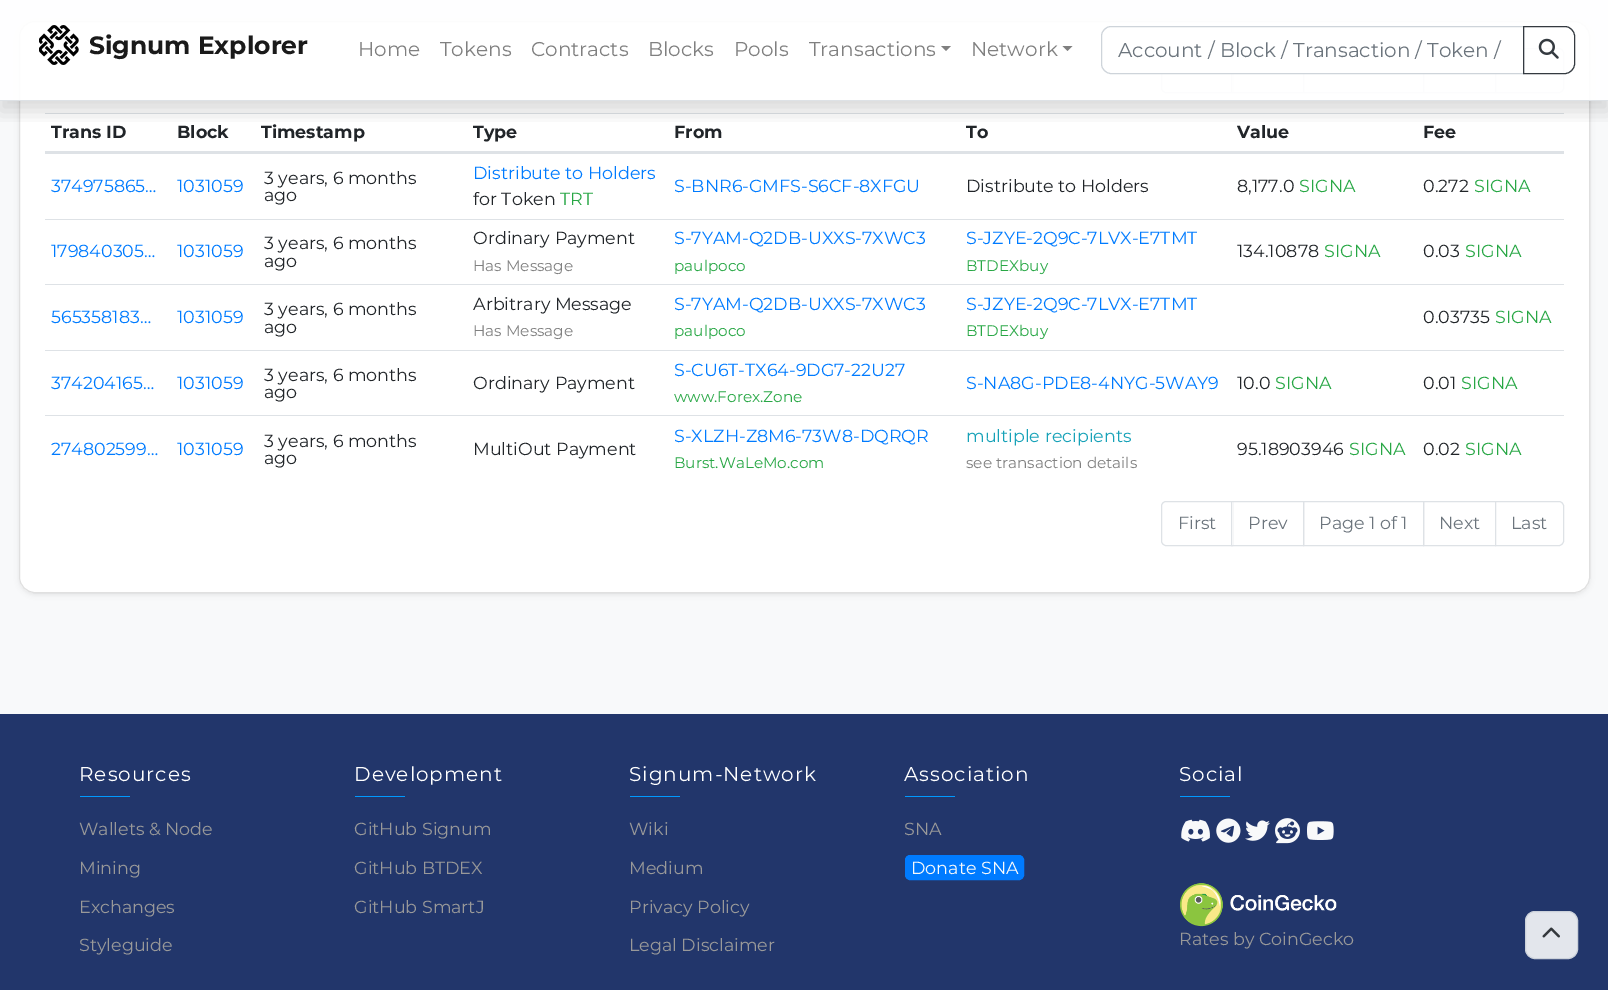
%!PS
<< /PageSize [1608 990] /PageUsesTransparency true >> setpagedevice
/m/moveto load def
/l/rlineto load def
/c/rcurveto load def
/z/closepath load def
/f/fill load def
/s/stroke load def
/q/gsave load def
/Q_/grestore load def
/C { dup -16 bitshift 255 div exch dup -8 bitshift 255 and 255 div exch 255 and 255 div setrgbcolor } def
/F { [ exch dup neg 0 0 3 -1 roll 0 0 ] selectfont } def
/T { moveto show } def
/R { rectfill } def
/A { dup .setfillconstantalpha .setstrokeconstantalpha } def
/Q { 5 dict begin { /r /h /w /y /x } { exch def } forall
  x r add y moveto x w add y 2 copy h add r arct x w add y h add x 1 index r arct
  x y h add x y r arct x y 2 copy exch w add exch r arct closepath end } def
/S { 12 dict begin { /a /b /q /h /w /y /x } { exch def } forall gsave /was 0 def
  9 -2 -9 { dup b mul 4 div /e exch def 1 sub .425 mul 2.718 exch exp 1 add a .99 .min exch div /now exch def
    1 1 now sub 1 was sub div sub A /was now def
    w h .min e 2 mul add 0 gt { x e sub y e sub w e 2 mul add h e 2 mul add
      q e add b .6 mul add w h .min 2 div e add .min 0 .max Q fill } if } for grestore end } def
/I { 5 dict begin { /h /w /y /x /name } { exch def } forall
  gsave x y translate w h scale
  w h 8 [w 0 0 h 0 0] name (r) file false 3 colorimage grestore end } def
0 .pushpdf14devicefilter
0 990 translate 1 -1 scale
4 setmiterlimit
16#F8F9FA C
0 0 1608 990 R
16#000000 C
19 24 1571 571 16 2.5 .07 S
16#FFFFFF C
19 21 1571 572 16 Q f
0.12 A
16#000000 C
19.5 21.5 1570 571 15.5 Q s
1 A
16#DEE2E6 C
1166 48.5 m 66.5 0 l 0 44 l -66.5 0 l -2.5 0 -4.5 -2 -4.5 -4.5 c 0 -35 l 0 -2.5 2 -4.5 4.5 -4.5 c z s
16#FFFFFF C
1232 74 1 18 R
16#DEE2E6 C
1231.5 48.5 72 44 rectstroke
1303.5 48.5 120 44 rectstroke
1423.5 48.5 72 44 rectstroke
16#FFFFFF C
1495.5 48.5 m 63.5 0 l 2.5 0 4.5 2 4.5 4.5 c 0 35 l 0 2.5 -2 4.5 -4.5 4.5 c -63.5 0 l z q f Q_
16#DEE2E6 C
s
45 113 1519 1 R
q
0 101 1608 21 rectclip
16#000000 C
0 10 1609 101 0 10 .15 S
Q_
0.9 A
16#FFFFFF C
0 0 1608 100 R
1 A
16#DEE2E6 C
0 100 1608 1 R
(1.rgb) 39 25 40 40 I
/Montserrat-Bold 25 F
16#1A1A1A C
(Signum Explorer) 89 54 T
/Montserrat-Regular 20 F
16#808080 C
(Home) 358 56 T
(Tokens) 440 56 T
(Contracts) 531 56 T
(Blocks) 648 56 T
(Pools) 734 56 T
(Transactions) 809 56 T
941 46 m 10 0 l -5 5 l z f
(Network) 971 56 T
1062.5 46 m 10 0 l -5 5 l z f
16#FFFFFF C
1112 28 m 411 0 l 0 45 l -411 0 l -5 0 -9 -4 -9 -9 c 0 -27 l 0 -5 4 -9 9 -9 c z f
16#CED4DA C
1111 26.5 m 412.5 0 l 0 47 l -412.5 0 l -5 0 -9.5 -4.5 -9.5 -9.5 c 0 -28 l 0 -5 4.5 -9.5 9.5 -9.5 c z s
16#6C757D C
(Account / Block / Transaction / Token /) 1118 57 T
16#343A40 C
1523.5 26.5 m 41.5 0 l 5 0 9.5 4.5 9.5 9.5 c 0 28 l 0 5 -4.5 9.5 -9.5 9.5 c -41.5 0 l z s
(2.rgb) 1538 38 21 21 I
/Montserrat-Bold 17.5 F
16#212529 C
(Trans ID) 51 138 T
(Block) 177 138 T
(Timestamp) 261 138 T
(Type) 473 138 T
(From) 674 138 T
(To) 966 138 T
(Value) 1237 138 T
16#DEE2E6 C
45 151 1519 3 R
16#212529 C
(Fee) 1423 138 T
/Montserrat-Regular 17.5 F
16#007BFF C
(374975865…) 51 192 T
(1031059) 177 192 T
16#212529 C
(3 years, 6 months) 264 184 T
(ago) 264 201 T
16#007BFF C
(Distribute to Holders) 473 179 T
16#212529 C
(for Token) 473 205 T
16#28A745 C
(TRT) 560 205 T
16#007BFF C
(S-BNR6-GMFS-S6CF-8XFGU) 674 192 T
16#212529 C
(Distribute to Holders) 966 192 T
(8,177.0) 1237 192 T
16#28A745 C
(SIGNA) 1299 192 T
16#212529 C
(0.272) 1423 192 T
16#28A745 C
(SIGNA) 1474 192 T
16#007BFF C
(179840305…) 51 257 T
(1031059) 177 257 T
16#212529 C
(3 years, 6 months) 264 249 T
(ago) 264 267 T
(Ordinary Payment) 473 244 T
/Montserrat-Regular 15.25 F
16#808080 C
(Has Message) 473 271 T
/Montserrat-Regular 17.5 F
16#007BFF C
(S-7YAM-Q2DB-UXXS-7XWC3) 674 244 T
/Montserrat-Regular 15.25 F
16#28A745 C
(paulpoco) 674 271 T
/Montserrat-Regular 17.5 F
16#007BFF C
(S-JZYE-2Q9C-7LVX-E7TMT) 966 244 T
/Montserrat-Regular 15.25 F
16#28A745 C
(BTDEXbuy) 966 271 T
/Montserrat-Regular 17.5 F
16#212529 C
(134.10878) 1237 257 T
16#28A745 C
(SIGNA) 1324 257 T
16#DEE2E6 C
45 219 1519 1 R
16#212529 C
(0.03) 1423 257 T
16#28A745 C
(SIGNA) 1465 257 T
16#007BFF C
(565358183…) 51 323 T
(1031059) 177 323 T
16#212529 C
(3 years, 6 months) 264 315 T
(ago) 264 333 T
(Arbitrary Message) 473 310 T
/Montserrat-Regular 15.25 F
16#808080 C
(Has Message) 473 336 T
/Montserrat-Regular 17.5 F
16#007BFF C
(S-7YAM-Q2DB-UXXS-7XWC3) 674 310 T
/Montserrat-Regular 15.25 F
16#28A745 C
(paulpoco) 674 336 T
/Montserrat-Regular 17.5 F
16#007BFF C
(S-JZYE-2Q9C-7LVX-E7TMT) 966 310 T
/Montserrat-Regular 15.25 F
16#28A745 C
(BTDEXbuy) 966 336 T
16#DEE2E6 C
45 284 1519 1 R
/Montserrat-Regular 17.5 F
16#212529 C
(0.03735) 1423 323 T
16#28A745 C
(SIGNA) 1495 323 T
16#007BFF C
(374204165…) 51 389 T
(1031059) 177 389 T
16#212529 C
(3 years, 6 months) 264 381 T
(ago) 264 398 T
(Ordinary Payment) 473 389 T
16#007BFF C
(S-CU6T-TX64-9DG7-22U27) 674 376 T
/Montserrat-Regular 15.25 F
16#28A745 C
(www.Forex.Zone) 674 402 T
/Montserrat-Regular 17.5 F
16#007BFF C
(S-NA8G-PDE8-4NYG-5WAY9) 966 389 T
16#212529 C
(10.0) 1237 389 T
16#28A745 C
(SIGNA) 1275 389 T
16#DEE2E6 C
45 350 1519 1 R
16#212529 C
(0.01) 1423 389 T
16#28A745 C
(SIGNA) 1461 389 T
16#007BFF C
(274802599…) 51 455 T
(1031059) 177 455 T
16#212529 C
(3 years, 6 months) 264 447 T
(ago) 264 464 T
(MultiOut Payment) 473 455 T
16#007BFF C
(S-XLZH-Z8M6-73W8-DQRQR) 674 442 T
/Montserrat-Regular 15.25 F
16#28A745 C
(Burst.WaLeMo.com) 674 468 T
/Montserrat-Regular 17.5 F
16#17A2B8 C
(multiple recipients) 966 442 T
/Montserrat-Regular 15.25 F
16#808080 C
(see transaction details) 966 468 T
/Montserrat-Regular 17.5 F
16#212529 C
(95.18903946) 1237 455 T
16#28A745 C
(SIGNA) 1349 455 T
16#DEE2E6 C
45 415 1519 1 R
16#212529 C
(0.02) 1423 455 T
16#28A745 C
(SIGNA) 1465 455 T
16#DEE2E6 C
1166 501.5 m 66.5 0 l 0 44 l -66.5 0 l -2.5 0 -4.5 -2 -4.5 -4.5 c 0 -35 l 0 -2.5 2 -4.5 4.5 -4.5 c z s
16#6C757D C
(First) 1178 529 T
16#FFFFFF C
1232 502 1 43 R
16#DEE2E6 C
1231.5 501.5 72 44 rectstroke
16#6C757D C
(Prev) 1248 529 T
16#DEE2E6 C
1303.5 501.5 120 44 rectstroke
16#6C757D C
(Page 1 of 1) 1319 529 T
16#DEE2E6 C
1423.5 501.5 72 44 rectstroke
16#6C757D C
(Next) 1439 529 T
16#FFFFFF C
1495.5 501.5 m 63.5 0 l 2.5 0 4.5 2 4.5 4.5 c 0 35 l 0 2.5 -2 4.5 -4.5 4.5 c -63.5 0 l z q f Q_
16#DEE2E6 C
s
16#6C757D C
(Last) 1511 529 T
16#22366B C
0 714 1608 276 R
/Montserrat-Regular 20 F
16#FFFFFF C
79 781 m 1 0 (Resources) ashow
16#0099FF C
80 796 50 1 R
/Montserrat-Regular 17.5 F
16#999999 C
(Wallets & Node) 79 835 T
(Mining) 79 874 T
(Exchanges) 79 913 T
(Styleguide) 79 951 T
/Montserrat-Regular 20 F
16#FFFFFF C
354 781 m 1 0 (Development) ashow
16#0099FF C
355 796 50 1 R
/Montserrat-Regular 17.5 F
16#999999 C
(GitHub Signum) 354 835 T
(GitHub BTDEX) 354 874 T
(GitHub SmartJ) 354 913 T
/Montserrat-Regular 20 F
16#FFFFFF C
629 781 m 1 0 (Signum-Network) ashow
16#0099FF C
630 796 50 1 R
/Montserrat-Regular 17.5 F
16#999999 C
(Wiki) 629 835 T
(Medium) 629 874 T
(Privacy Policy) 629 913 T
(Legal Disclaimer) 629 951 T
/Montserrat-Regular 20 F
16#FFFFFF C
904 781 m 1 0 (Association) ashow
16#0099FF C
905 796 50 1 R
/Montserrat-Regular 17.5 F
16#999999 C
(SNA) 904 835 T
16#007BFF C
905.5 855.5 118 24 4.5 Q q f Q_
s
16#F8F9FA C
(Donate SNA) 911 874 T
/Montserrat-Regular 20 F
16#FFFFFF C
1179 781 m 1 0 (Social) ashow
16#0099FF C
1180 796 50 1 R
(3.rgb) 1181 819 29 23 I
(4.rgb) 1216 818 25 25 I
(5.rgb) 1245 820 25 21 I
(6.rgb) 1275 818 25 26 I
(7.rgb) 1307 821 27 19 I
(8.rgb) 1180 883 157 44 I
/Montserrat-Regular 17.5 F
16#999999 C
(Rates by CoinGecko) 1179 945 T
16#E3E6EC C
1525.5 911.5 52 47 9.5 Q q f Q_
16#CBD1DA C
s
(9.rgb) 1542 927 18 11 I
.poppdf14devicefilter showpage
